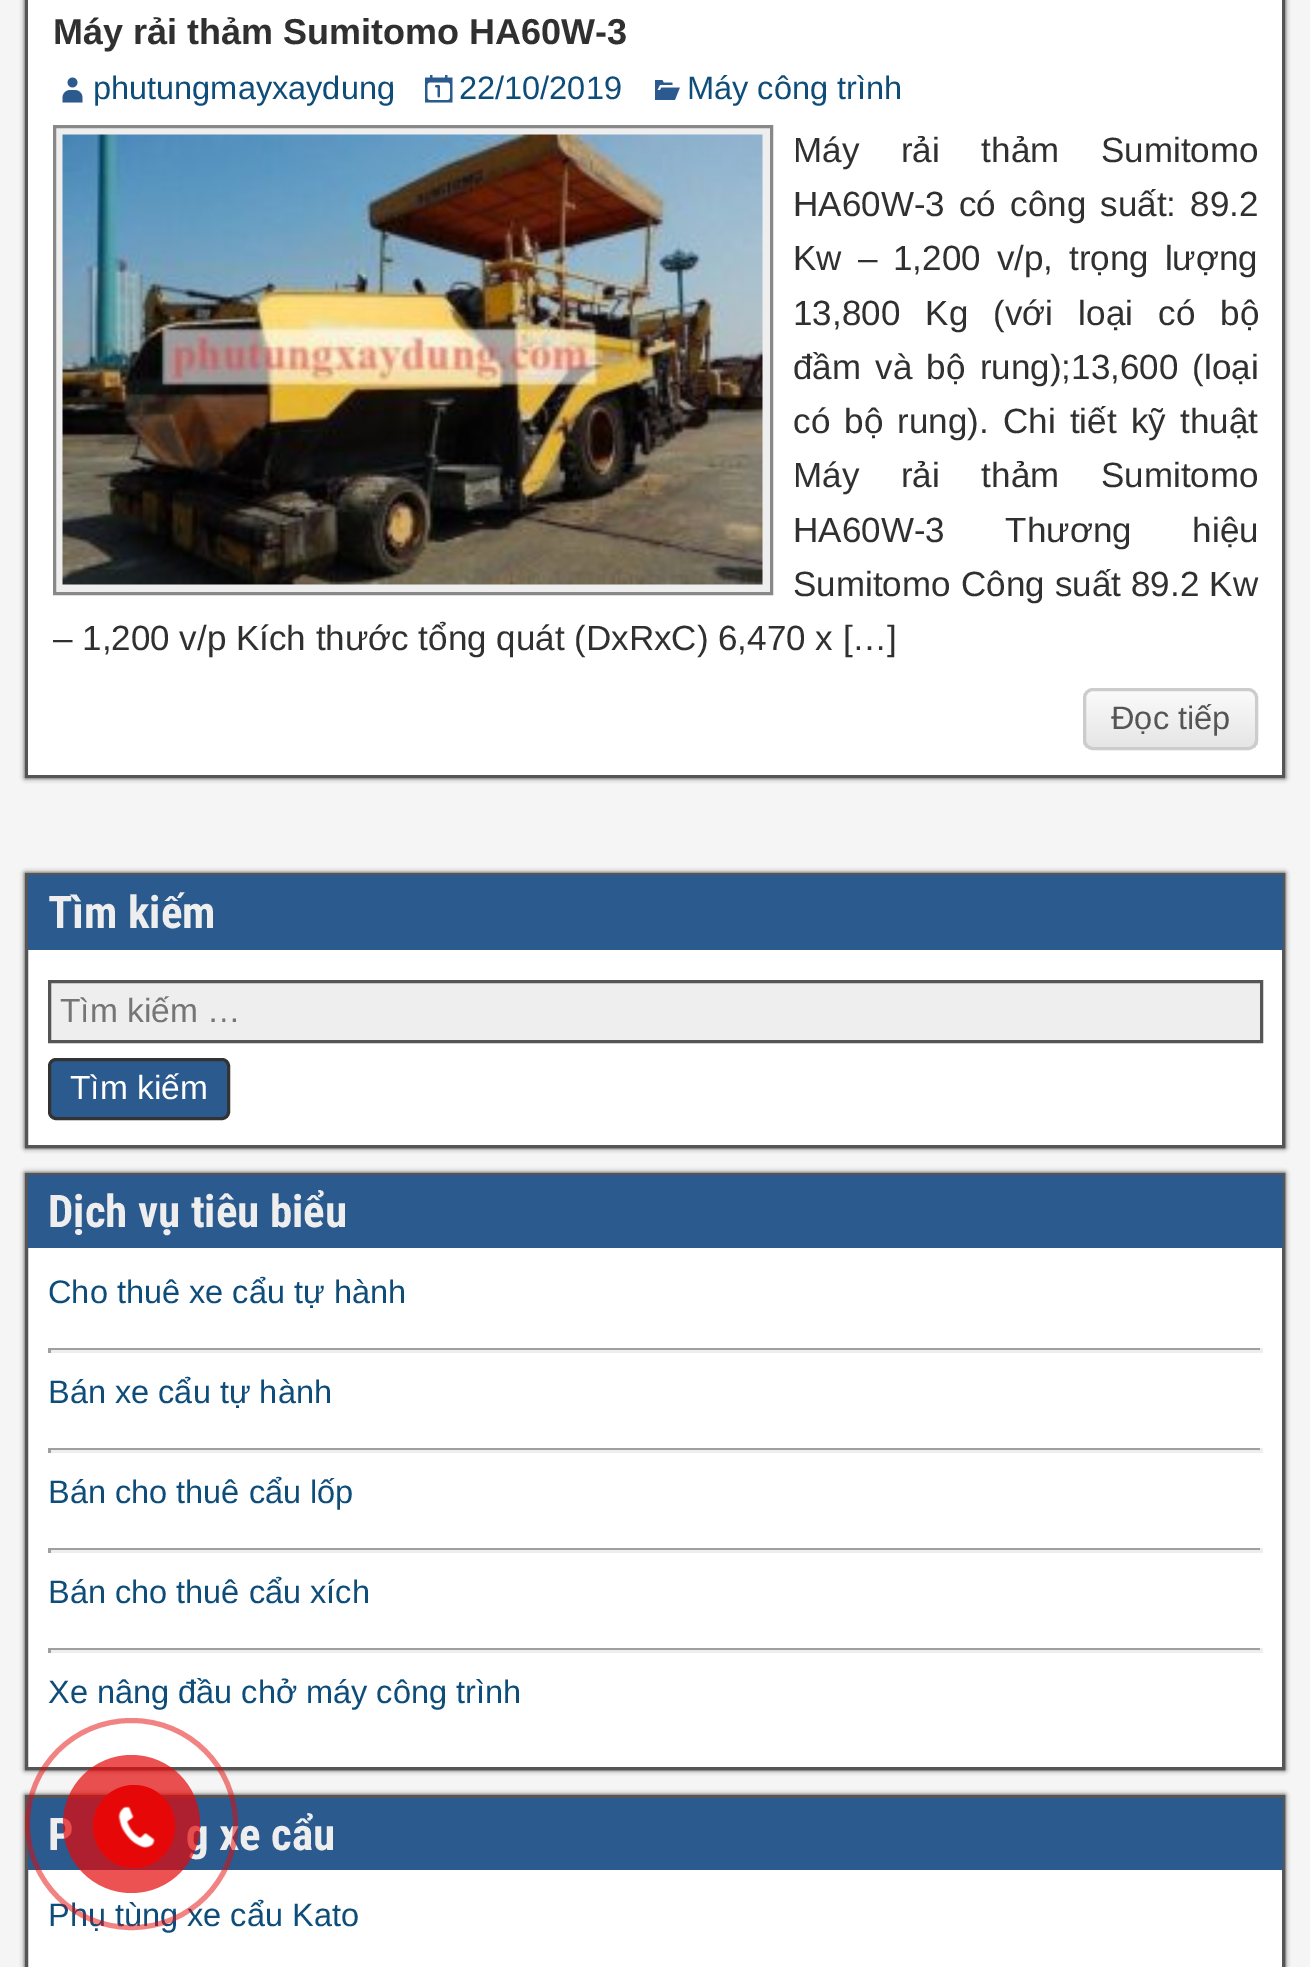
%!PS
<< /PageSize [1310 1967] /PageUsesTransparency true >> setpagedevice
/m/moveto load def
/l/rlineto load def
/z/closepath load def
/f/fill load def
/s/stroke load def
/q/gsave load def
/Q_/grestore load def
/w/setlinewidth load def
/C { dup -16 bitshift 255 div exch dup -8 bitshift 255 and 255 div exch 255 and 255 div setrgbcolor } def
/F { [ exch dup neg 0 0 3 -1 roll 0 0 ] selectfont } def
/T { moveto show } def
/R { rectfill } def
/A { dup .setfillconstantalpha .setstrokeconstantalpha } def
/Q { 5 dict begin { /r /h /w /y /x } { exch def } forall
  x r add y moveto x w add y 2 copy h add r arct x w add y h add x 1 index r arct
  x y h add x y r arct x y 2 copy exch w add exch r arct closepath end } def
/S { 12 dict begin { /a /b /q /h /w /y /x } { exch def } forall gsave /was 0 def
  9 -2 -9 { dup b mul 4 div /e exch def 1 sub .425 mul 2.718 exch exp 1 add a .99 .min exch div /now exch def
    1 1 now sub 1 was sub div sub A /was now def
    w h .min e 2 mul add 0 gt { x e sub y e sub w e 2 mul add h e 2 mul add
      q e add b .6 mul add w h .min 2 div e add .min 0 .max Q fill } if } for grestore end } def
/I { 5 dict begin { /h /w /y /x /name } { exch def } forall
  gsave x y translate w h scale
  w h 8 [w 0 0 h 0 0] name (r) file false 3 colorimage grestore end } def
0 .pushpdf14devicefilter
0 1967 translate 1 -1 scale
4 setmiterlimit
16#F5F5F5 C
0 0 1310 1967 R
16#333333 C
25 -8 1260 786 0 2.5 1 S
16#FFFFFF C
28 0 1254 775 R
16#555555 C
1285 -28 m 0 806 l -3 -3 l 0 -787 l z f
25 775 1260 3 R
25 778 m 0 -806 l 3 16 l 0 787 l z f
/LiberationSans-Bold 36 F
16#303030 C
(Máy rải thảm Sumitomo HA60W-3) 53 44 T
(1.rgb) 62 77 21 26 I
/LiberationSans-Regular 32.5 F
16#0E4D7A C
(phutungmayxaydung) 93 99 T
(2.rgb) 425 75 28 28 I
(22/10/2019) 459 99 T
(3.rgb) 655 80 25 20 I
(Máy công trình) 687 99 T
16#EEEEEE C
54.5 126.5 m 717 0 l 0 467 l -717 0 l z q f Q_
16#888888 C
3 w
s
(4.rgb) 62 134 701 451 I
/Arimo-Regular 35 F
16#303030 C
793 162 m 32 0 32 (Máy rải thảm Sumitomo) widthshow
793 216 m 4.5 0 32 (HA60W-3 có công suất: 89.2) widthshow
793 270 m 6.25 0 32 (Kw – 1,200 v/p, trọng lượng) widthshow
793 325 m 15.5 0 32 (13,800 Kg \(với loại có bộ) widthshow
793 379 m 4.5 0 32 (đầm và bộ rung\);13,600 \(loại) widthshow
793 433 m 4.5 0 32 (có bộ rung\). Chi tiết kỹ thuật) widthshow
793 487 m 32 0 32 (Máy rải thảm Sumitomo) widthshow
793 542 m 51 0 32 (HA60W-3 Thương hiệu) widthshow
793 596 m .5 0 32 (Sumitomo Công suất 89.2 Kw) widthshow
(– 1,200 v/p Kích thước tổng quát \(DxRxC\) 6,470 x […]) 53 650 T
q
1083 688 175 62 10 Q clip newpath
q 1083 690 m 175 0 l 0 58 l -175 0 l z clip newpath
<< /ShadingType 2 /ColorSpace /DeviceRGB /Coords [1170 690 1170 748] /Extend [true true] /Function << /FunctionType 2 /Domain [0 1] /C0 [.984 .984 .984] /C1 [.898 .898 .898] /N 1 >> >> shfill Q_
Q_
16#CCCCCC C
1084.5 689.5 172 59 8.5 Q s
/LiberationSans-Regular 32.5 F
16#555555 C
(Đọc tiếp) 1111 729 T
16#333333 C
25 873 1260 275 0 2.5 1 S
16#FFFFFF C
28 950 1254 195 R
16#555555 C
26.5 874.5 1257 272 rectstroke
16#2A5A8E C
28 875 1255 75 R
/RobotoCondensed-Bold 45 F
16#EEEEEE C
(Tìm kiếm) 48 928 T
49.5 981.5 m 1212 0 l 0 60 l -1212 0 l z q f Q_
16#555555 C
s
/LiberationSans-Regular 33.5 F
16#757575 C
(Tìm kiếm …) 60 1022 T
16#2A5A8E C
49.5 1059.5 179 59 6.5 Q q f Q_
16#333333 C
s
16#FFFFFF C
(Tìm kiếm) 70 1099 T
16#333333 C
25 1173 1260 597 0 2.5 1 S
16#FFFFFF C
28 1248 1254 519 R
16#555555 C
26.5 1174.5 1257 594 rectstroke
16#2A5A8E C
28 1175 1255 73 R
/RobotoCondensed-Bold 45 F
16#EEEEEE C
(Dịch vụ tiêu biểu) 48 1227 T
/LiberationSans-Regular 32.5 F
16#0E4D7A C
(Cho thuê xe cẩu tự hành) 48 1303 T
16#9F9F9F C
48 1348 1215 2 R
16#EEEEEE C
1260 1348 3 5 R
48 1350 1215 3 R
16#9F9F9F C
48 1348 3 5 R
16#0E4D7A C
(Bán xe cẩu tự hành) 48 1403 T
16#9F9F9F C
48 1448 1215 2 R
16#EEEEEE C
1260 1448 3 5 R
48 1450 1215 3 R
16#9F9F9F C
48 1448 3 5 R
16#0E4D7A C
(Bán cho thuê cẩu lốp) 48 1503 T
16#9F9F9F C
48 1548 1215 2 R
16#EEEEEE C
1260 1548 3 5 R
48 1550 1215 3 R
16#9F9F9F C
48 1548 3 5 R
16#0E4D7A C
(Bán cho thuê cẩu xích) 48 1603 T
16#9F9F9F C
48 1648 1215 2 R
16#EEEEEE C
1260 1648 3 5 R
48 1650 1215 3 R
16#9F9F9F C
48 1648 3 5 R
16#0E4D7A C
(Xe nâng đầu chở máy công trình) 48 1703 T
16#333333 C
25 1795 1260 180 0 2.5 1 S
16#FFFFFF C
28 1870 1254 97 R
16#555555 C
26.5 1796.5 1257 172 rectstroke
16#2A5A8E C
28 1798 1255 72 R
/RobotoCondensed-Bold 45 F
16#EEEEEE C
(P) 48 1850 T
(g xe cẩu) 186 1850 T
/LiberationSans-Regular 32.5 F
16#0E4D7A C
(Phụ tùng xe cẩu Kato) 48 1926 T
0.5 A
16#E60808 C
5 w
27.5 1720.5 208 207 103.5 Q s
0.7 A
63 1755 137 138 68.5 Q f
1 A
93 1785 82 83 41 Q f
(5.rgb) 118 1806 37 42 I
.poppdf14devicefilter showpage
